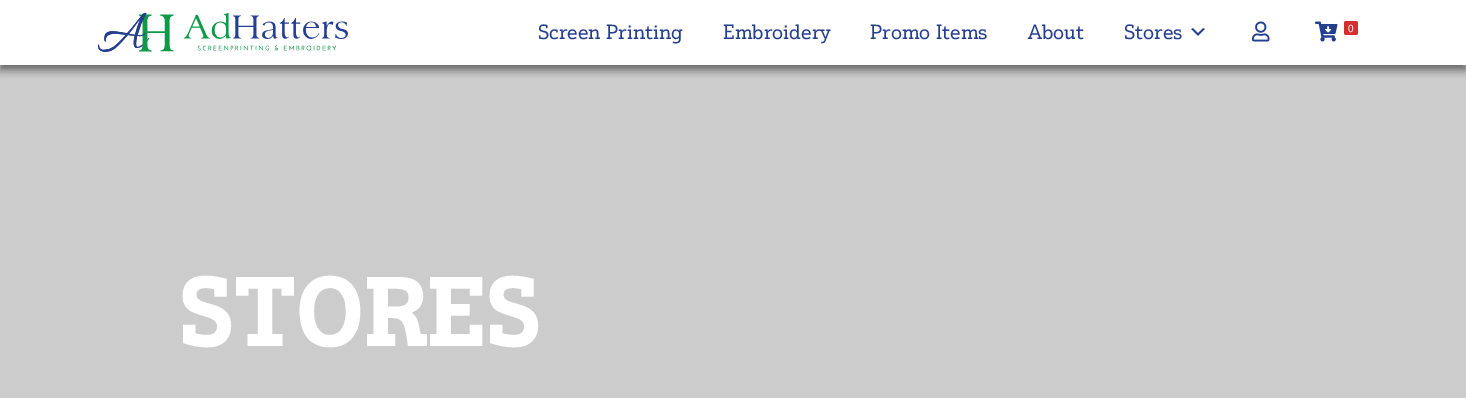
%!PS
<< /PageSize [1466 398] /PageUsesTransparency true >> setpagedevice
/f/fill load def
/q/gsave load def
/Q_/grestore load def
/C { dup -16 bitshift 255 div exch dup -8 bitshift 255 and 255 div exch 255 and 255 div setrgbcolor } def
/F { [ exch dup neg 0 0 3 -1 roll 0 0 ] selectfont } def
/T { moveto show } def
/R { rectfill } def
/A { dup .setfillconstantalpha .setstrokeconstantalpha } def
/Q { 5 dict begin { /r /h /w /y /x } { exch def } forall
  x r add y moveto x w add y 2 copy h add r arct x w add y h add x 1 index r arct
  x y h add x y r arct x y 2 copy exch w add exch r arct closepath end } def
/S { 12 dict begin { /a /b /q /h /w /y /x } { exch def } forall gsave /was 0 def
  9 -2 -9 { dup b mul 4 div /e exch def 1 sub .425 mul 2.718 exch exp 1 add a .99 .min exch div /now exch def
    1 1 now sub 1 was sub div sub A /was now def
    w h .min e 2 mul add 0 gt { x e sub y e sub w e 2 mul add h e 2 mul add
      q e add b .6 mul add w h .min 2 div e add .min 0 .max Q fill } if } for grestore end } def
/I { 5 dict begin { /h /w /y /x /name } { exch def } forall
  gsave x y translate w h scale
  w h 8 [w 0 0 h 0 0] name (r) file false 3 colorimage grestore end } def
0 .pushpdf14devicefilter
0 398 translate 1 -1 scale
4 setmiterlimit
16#FFFFFF C
0 0 1466 398 R
16#CCCCCC C
0 65 1466 333 R
q
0 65 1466 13 rectclip
16#000000 C
0 5 1466 65 0 4.5 .52 S
Q_
(1.rgb) 98 13 250 39 I
/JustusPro-Regular 20 F
16#243E90 C
(Screen Printing) 538 39 T
(Embroidery) 723 39 T
(Promo Items) 870 39 T
(About) 1028 39 T
(Stores) 1124 39 T
(2.rgb) 1191 28 14 8 I
(3.rgb) 1252 21 18 21 I
(4.rgb) 1315 21 23 21 I
16#D32F2F C
1344 21 14 14 2 Q f
/JustusPro-Regular 10 F
16#FFFFFF C
(0) 1348 32 T
/JustusPro-Bold 96 F
(STORES) 178 346 T
.poppdf14devicefilter showpage
